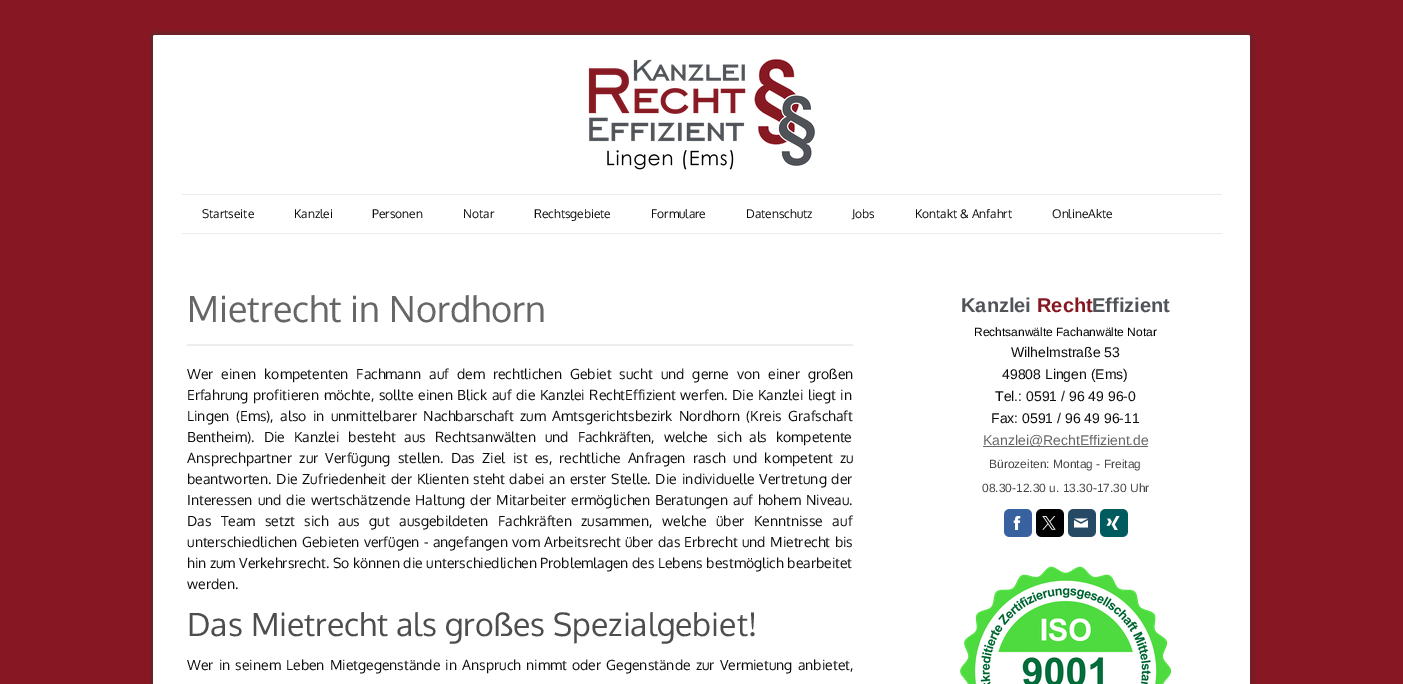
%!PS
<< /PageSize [1403 684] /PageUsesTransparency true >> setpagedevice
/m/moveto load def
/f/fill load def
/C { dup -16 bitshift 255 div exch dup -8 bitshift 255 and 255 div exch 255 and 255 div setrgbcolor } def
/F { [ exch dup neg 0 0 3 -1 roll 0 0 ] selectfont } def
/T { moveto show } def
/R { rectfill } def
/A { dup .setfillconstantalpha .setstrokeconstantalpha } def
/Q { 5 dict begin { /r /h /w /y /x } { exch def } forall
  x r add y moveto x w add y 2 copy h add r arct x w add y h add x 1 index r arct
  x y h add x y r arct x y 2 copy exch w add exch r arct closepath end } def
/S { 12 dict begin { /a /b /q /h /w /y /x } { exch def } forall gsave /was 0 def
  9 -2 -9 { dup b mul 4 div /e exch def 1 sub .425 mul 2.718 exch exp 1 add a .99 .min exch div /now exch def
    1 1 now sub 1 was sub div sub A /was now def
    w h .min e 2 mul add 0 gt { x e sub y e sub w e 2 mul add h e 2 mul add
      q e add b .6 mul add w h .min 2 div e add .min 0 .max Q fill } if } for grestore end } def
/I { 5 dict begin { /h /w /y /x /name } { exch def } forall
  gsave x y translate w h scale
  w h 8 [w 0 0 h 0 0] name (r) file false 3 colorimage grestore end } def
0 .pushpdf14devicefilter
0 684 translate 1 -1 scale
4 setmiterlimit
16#871823 C
0 0 1403 684 R
16#333333 C
150 32 1103 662 5 1.5 .3 S
16#FFFFFF C
153 35 1097 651 2 Q f
(1.rgb) 588 59 227 111 I
16#EDEDED C
182 194 1040 1 R
182 233 1040 1 R
/Oxygen-Regular 12 F
16#0D0D0D C
(Startseite) 202 218 T
(Kanzlei) 294 218 T
(Personen) 372 218 T
(Notar) 463 218 T
(Rechtsgebiete) 534 218 T
(Formulare) 651 218 T
(Datenschutz) 746 218 T
(Jobs) 852 218 T
(Kontakt & Anfahrt) 915 218 T
(OnlineAkte) 1052 218 T
/Oxygen-Regular 36 F
16#666666 C
(Mietrecht in Nordhorn) 187 322 T
16#EDEDED C
187 344 666 2 R
/Oxygen-Regular 14 F
16#0D0D0D C
187 379 m 4.5 0 32 (Wer einen kompetenten Fachmann auf dem rechtlichen Gebiet sucht und gerne von einer großen) widthshow
187 400 m 1 0 32 (Erfahrung profitieren möchte, sollte einen Blick auf die Kanzlei RechtEffizient werfen. Die Kanzlei) widthshow
808 400 m 1 0 32 (liegt in) widthshow
187 421 m 2.9 0 32 (Lingen \(Ems\), also in unmittelbarer Nachbarschaft zum Amtsgerichtsbezirk Nordhorn \(Kreis Grafschaft) widthshow
187 442 m 5.5 0 32 (Bentheim\). Die Kanzlei besteht aus Rechtsanwälten und Fachkräften, welche sich) widthshow
749 442 m 5.5 0 32 (als kompetente) widthshow
187 463 m 3.75 0 32 (Ansprechpartner zur Verfügung stellen. Das Ziel ist es, rechtliche Anfragen rasch und kompetent zu) widthshow
187 484 m 1.25 0 32 (beantworten. Die Zufriedenheit der Klienten steht dabei an erster Stelle. Die) widthshow
682 484 m 1.25 0 32 (individuelle Vertretung der) widthshow
187 505 m 1.5 0 32 (Interessen und die wertschätzende Haltung der Mitarbeiter ermöglichen Beratungen auf hohem Niveau.) widthshow
187 526 m 6 0 32 (Das Team setzt sich aus gut ausgebildeten Fachkräften zusammen,) widthshow
662 526 m 6 0 32 (welche über Kenntnisse auf) widthshow
187 547 m .9 0 32 (unterschiedlichen Gebieten verfügen - angefangen vom Arbeitsrecht über das Erbrecht und Mietrecht bis) widthshow
(hin zum Verkehrsrecht. So können die unterschiedlichen Problemlagen des Lebens bestmöglich bearbeitet) 187 568 T
(werden.) 187 589 T
/Oxygen-Regular 32 F
16#4D4D4D C
(Das Mietrecht als großes Spezialgebiet!) 187 636 T
/Oxygen-Regular 14 F
16#0D0D0D C
187 670 m 1.7 0 32 (Wer in seinem Leben Mietgegenstände in Anspruch nimmt oder Gegenstände zur Vermietung anbietet,) widthshow
/LiberationSans-Bold 20 F
16#505458 C
(Kanzlei) 961 312 T
16#861821 C
(Recht) 1037 312 T
16#505458 C
(Effizient) 1092 312 T
/LiberationSans-Regular 12 F
16#000000 C
(Rechtsanwälte Fachanwälte Notar) 974 336 T
/LiberationSans-Regular 14 F
16#0D0D0D C
(Wilhelmstraße 53) 1011 357 T
(49808 Lingen \(Ems\)) 1002 379 T
(Tel.: 0591 / 96 49 96-0) 995 401 T
(Fax: 0591 / 96 49 96-11) 991 423 T
16#666666 C
983 446 165 1 R
(Kanzlei@RechtEffizient.de) 983 445 T
/LiberationSans-Regular 12 F
16#454545 C
(Bürozeiten: Montag - Freitag) 989 468 T
(08.30-12.30 u. 13.30-17.30 Uhr) 982 492 T
(2.rgb) 1004 509 28 28 I
(3.rgb) 1013 516 8 14 I
(4.rgb) 1036 509 28 28 I
(5.rgb) 1042 516 14 14 I
(6.rgb) 1068 509 28 28 I
(7.rgb) 1074 518 14 10 I
(8.rgb) 1100 509 28 28 I
(9.rgb) 1106 516 14 14 I
(10.rgb) 960 566 212 118 I
.poppdf14devicefilter showpage
